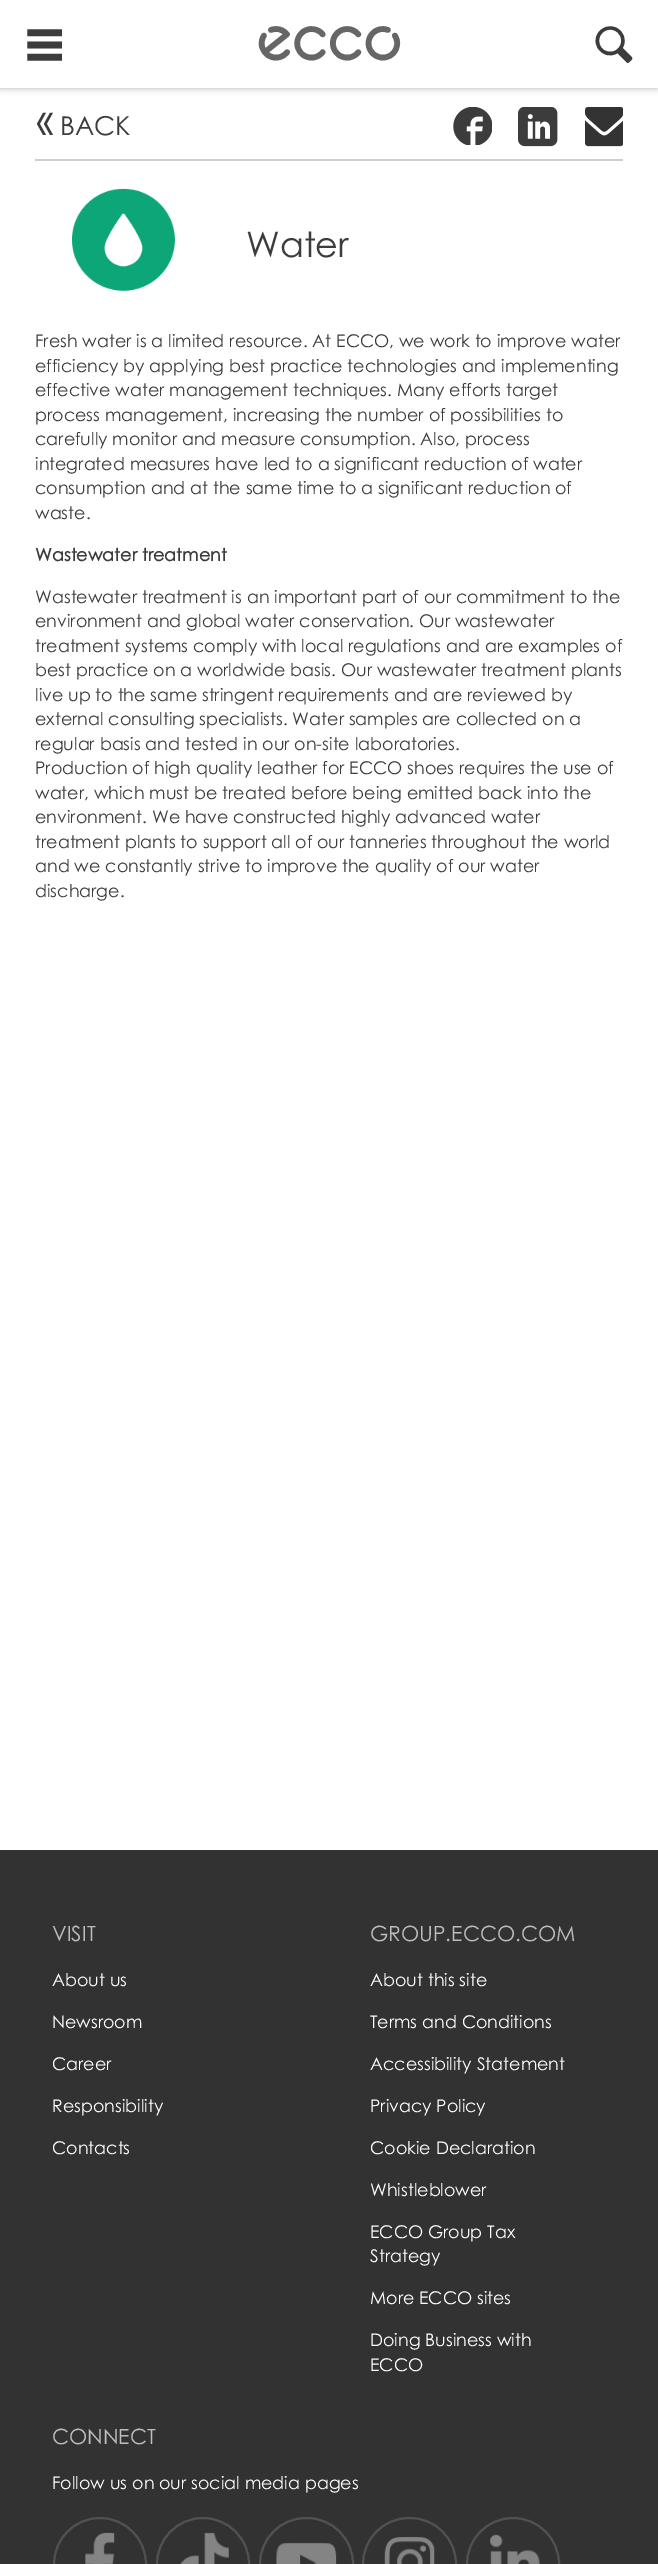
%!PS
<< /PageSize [658 2564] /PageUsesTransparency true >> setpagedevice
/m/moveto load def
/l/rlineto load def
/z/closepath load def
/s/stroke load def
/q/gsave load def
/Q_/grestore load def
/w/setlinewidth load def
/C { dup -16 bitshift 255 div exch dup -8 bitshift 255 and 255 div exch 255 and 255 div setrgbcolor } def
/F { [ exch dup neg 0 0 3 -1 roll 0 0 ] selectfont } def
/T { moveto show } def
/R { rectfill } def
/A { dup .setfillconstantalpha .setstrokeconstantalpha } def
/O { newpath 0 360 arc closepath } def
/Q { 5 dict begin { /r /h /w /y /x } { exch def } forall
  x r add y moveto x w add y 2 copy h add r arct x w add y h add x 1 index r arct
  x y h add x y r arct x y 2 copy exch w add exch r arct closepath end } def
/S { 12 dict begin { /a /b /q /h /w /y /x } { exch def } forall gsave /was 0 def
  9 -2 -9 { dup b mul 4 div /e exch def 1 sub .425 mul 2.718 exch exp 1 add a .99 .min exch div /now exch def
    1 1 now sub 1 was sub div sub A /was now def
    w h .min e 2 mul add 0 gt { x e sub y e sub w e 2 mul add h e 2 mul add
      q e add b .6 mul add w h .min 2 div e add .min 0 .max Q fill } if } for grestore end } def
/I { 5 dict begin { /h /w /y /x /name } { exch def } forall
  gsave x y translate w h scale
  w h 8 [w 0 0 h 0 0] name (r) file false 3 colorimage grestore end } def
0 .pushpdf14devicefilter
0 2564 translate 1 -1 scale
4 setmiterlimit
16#FFFFFF C
0 0 658 2564 R
q
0 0 m 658 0 l 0 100 l -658 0 l z 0 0 m 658 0 l 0 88 l -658 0 l z eoclip newpath
16#000000 C
0 0 658 88 0 3.5 .3 S
Q_
0.9 A
0 87 658 1 R
/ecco-Regular 35 F
1 A
16#3C3C3C C
(") 25 60 T
/ecco-Regular 37 F
16#666666 C
(!) 257 60 T
/ecco-Regular 38 F
16#3C3C3C C
(#) 595 61 T
16#CECECE C
35 159 588 2 R
/ecco-Bold 24 F
16#3C3C3C C
35 135 m -5 0 (||) ashow
/CenturyGothic-Regular 26 F
(BACK) 60 135 T
(1.rgb) 453 107 39 38 I
(2.rgb) 518 107 40 40 I
(3.rgb) 585 107 38 40 I
(4.rgb) 72 188 103 103 I
/CenturyGothic-Regular 35 F
(Water) 246 257 T
/CenturyGothic-Regular 17.5 F
(Fresh water is a limited resource. At ECCO, we work to improve water) 35 347 T
(efficiency by applying best practice technologies and implementing) 35 372 T
(effective water management techniques. Many efforts target) 35 396 T
(process management, increasing the number of possibilities to) 35 421 T
(carefully monitor and measure consumption. Also, process) 35 445 T
(integrated measures have led to a significant reduction of water) 35 470 T
(consumption and at the same time to a significant reduction of) 35 494 T
(waste.) 35 519 T
/CenturyGothic-Bold 17.5 F
(Wastewater treatment) 35 561 T
/CenturyGothic-Regular 17.5 F
(Wastewater treatment is an important part of our commitment to the) 35 603 T
(environment and global water conservation. Our wastewater) 35 627 T
(treatment systems comply with local regulations and are examples of) 35 652 T
(best practice on a worldwide basis. Our wastewater treatment plants) 35 676 T
(live up to the same stringent requirements and are reviewed by) 35 701 T
(external consulting specialists. Water samples are collected on a) 35 725 T
(regular basis and tested in our on-site laboratories.) 35 750 T
(Production of high quality leather for ECCO shoes requires the use of) 35 774 T
(water, which must be treated before being emitted back into the) 35 799 T
(environment. We have constructed highly advanced water) 35 823 T
(treatment plants to support all of our tanneries throughout the world) 35 848 T
(and we constantly strive to improve the quality of our water) 35 872 T
(discharge.) 35 897 T
16#323232 C
0 1850 658 714 R
/CenturyGothic-Regular 21 F
16#BDBDBD C
(VISIT) 52 1941 T
/CenturyGothic-Regular 17.5 F
16#FFFFFF C
(About us) 52 1986 T
(Newsroom) 52 2028 T
(Career) 52 2070 T
(Responsibility) 52 2112 T
(Contacts) 52 2154 T
/CenturyGothic-Regular 21 F
16#BDBDBD C
(GROUP.ECCO.COM) 370 1941 T
/CenturyGothic-Regular 17.5 F
16#FFFFFF C
(About this site) 370 1986 T
(Terms and Conditions) 370 2028 T
(Accessibility Statement) 370 2070 T
(Privacy Policy) 370 2112 T
(Cookie Declaration) 370 2154 T
(Whistleblower) 370 2196 T
(ECCO Group Tax) 370 2238 T
(Strategy) 370 2262 T
(More ECCO sites) 370 2304 T
(Doing Business with) 370 2346 T
(ECCO) 370 2371 T
/CenturyGothic-Regular 21 F
16#BDBDBD C
(CONNECT) 52 2444 T
/CenturyGothic-Regular 17.5 F
16#FFFFFF C
(Follow us on our social media pages) 52 2489 T
16#515151 C
2 w
100 2564 46 O s
(5.rgb) 85 2532 30 32 I
203 2564 46 O s
(6.rgb) 180 2532 49 32 I
260 2518 93 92 46 Q s
(7.rgb) 276 2542 61 22 I
363 2518 93 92 46 Q s
(8.rgb) 384 2537 51 27 I
513 2564 46 O s
(9.rgb) 490 2534 50 30 I
.poppdf14devicefilter showpage
